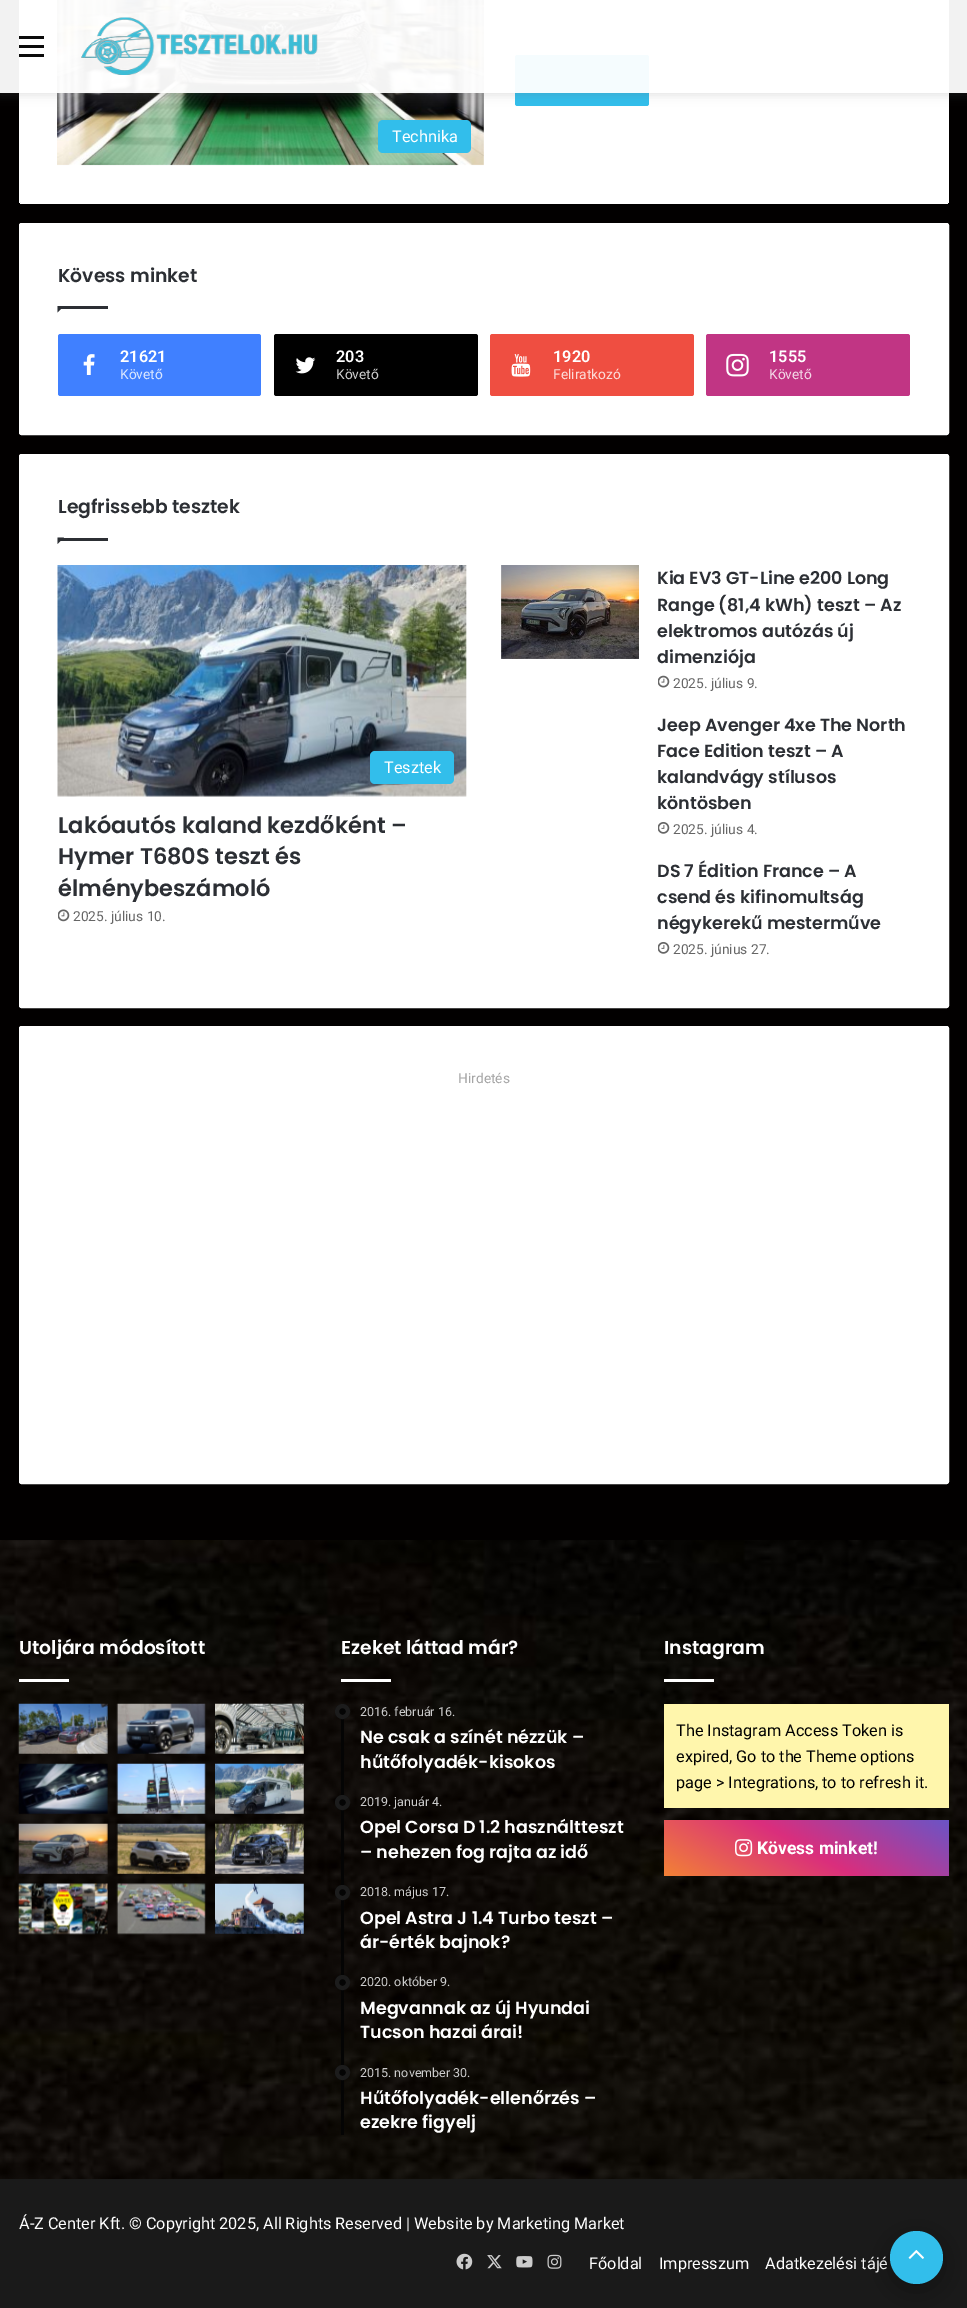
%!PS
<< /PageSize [967 2308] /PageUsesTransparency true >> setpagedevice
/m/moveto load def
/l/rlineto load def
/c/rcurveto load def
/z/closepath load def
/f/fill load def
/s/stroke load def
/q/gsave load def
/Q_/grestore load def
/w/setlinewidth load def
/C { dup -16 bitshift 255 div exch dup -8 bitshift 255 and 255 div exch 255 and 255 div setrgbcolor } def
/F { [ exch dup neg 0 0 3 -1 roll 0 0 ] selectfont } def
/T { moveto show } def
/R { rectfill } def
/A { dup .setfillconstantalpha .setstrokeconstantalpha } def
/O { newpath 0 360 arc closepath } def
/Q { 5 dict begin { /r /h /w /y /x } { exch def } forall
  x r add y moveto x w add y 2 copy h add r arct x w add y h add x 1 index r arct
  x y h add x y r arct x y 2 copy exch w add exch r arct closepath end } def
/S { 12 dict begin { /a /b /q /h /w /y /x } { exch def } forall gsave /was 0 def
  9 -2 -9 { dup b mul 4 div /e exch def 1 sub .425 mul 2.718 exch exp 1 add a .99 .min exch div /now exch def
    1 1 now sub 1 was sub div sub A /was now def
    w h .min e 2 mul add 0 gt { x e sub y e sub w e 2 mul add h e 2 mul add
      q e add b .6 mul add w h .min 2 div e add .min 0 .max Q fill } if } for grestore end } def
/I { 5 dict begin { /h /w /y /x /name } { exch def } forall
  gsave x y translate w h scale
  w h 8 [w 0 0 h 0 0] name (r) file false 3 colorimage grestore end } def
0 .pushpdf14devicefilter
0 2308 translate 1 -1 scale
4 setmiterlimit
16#020000 C
0 0 967 2308 R
16#FFFFFF C
20 -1 m 928 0 l 0 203 l 0 .5 -.5 1 -1 1 c -926 0 l -.5 0 -1 -.5 -1 -1 c z f
948 0 1 203 R
19 0 1 203 R
16#32BEEB C
515 55 134 51 2.5 Q f
(2.rgb) 57 0 427 166 I
q
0 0 m 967 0 l 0 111 l -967 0 l z 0 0 m 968 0 l 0 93 l -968 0 l z eoclip newpath
16#636363 C
0 3 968 92 0 5 .2 S
Q_
0.95 A
16#FFFFFF C
0 0 967 93 R
1 A
16#0A0A0A C
19 45 25 3 R
19 36 25 3 R
19 54 25 3 R
(1.rgb) 81 17 237 58 I
16#FFFFFF C
20 203 928 1 R
16#32BEEB C
378 120 93 33 5 Q f
/Roboto-Regular 16.25 F
16#FFFFFF C
(Technika) 392 142 T
19.5 223.5 929 211 2 Q q f Q_
s
/Poppins-SemiBold 18.75 F
16#2C2F34 C
(Kövess minket) 58 282 T
57.5 306 m 6.5 0 l -6.5 6.5 l z f
58 306 50 3 R
16#4080FF C
58 334 203 62 2.5 Q f
(3.rgb) 83 354 12 21 I
/Roboto-SemiBold 16.25 F
16#FFFFFF C
(21621) 120 362 T
/Roboto-Regular 13.75 F
16#D9E6FF C
(Követő) 120 379 T
16#000000 C
274 334 204 62 2.5 Q f
(4.rgb) 295 357 21 17 I
/Roboto-SemiBold 16.25 F
16#FFFFFF C
(203) 336 362 T
/Roboto-Regular 13.75 F
16#CCCCCC C
(Követő) 336 379 T
16#EF4E41 C
490 334 204 62 2.5 Q f
(5.rgb) 511 354 20 23 I
/Roboto-SemiBold 16.25 F
16#FFFFFF C
(1920) 553 362 T
/Roboto-Regular 13.75 F
16#FCDCD9 C
(Feliratkozó) 553 379 T
16#C13584 C
706 334 204 62 2.5 Q f
(6.rgb) 726 353 23 24 I
/Roboto-SemiBold 16.25 F
16#FFFFFF C
(1555) 769 362 T
/Roboto-Regular 13.75 F
16#F3D7E6 C
(Követő) 769 379 T
16#FFFFFF C
19.5 454.5 929 553 2 Q q f Q_
s
/Poppins-SemiBold 18.75 F
16#2C2F34 C
(Legfrissebb tesztek) 58 513 T
57.5 537.5 m 6.5 0 l -6.5 6.5 l z f
58 538 50 3 R
(7.rgb) 501 565 138 94 I
/Poppins-SemiBold 17.5 F
(Kia EV3 GT-Line e200 Long) 657 584 T
(Range \(81,4 kWh\) teszt – Az) 657 611 T
(elektromos autózás új) 657 637 T
(dimenziója) 657 663 T
(8.rgb) 658 675 12 13 I
/Roboto-Regular 13.75 F
16#666666 C
(2025. július 9.) 673 688 T
(9.rgb) 57 565 410 232 I
16#32BEEB C
370 751 84 33 5 Q f
/Roboto-Regular 16.25 F
16#FFFFFF C
(Tesztek) 384 773 T
/Poppins-SemiBold 22.5 F
16#2C2F34 C
(Lakóautós kaland kezdőként –) 58 833 T
(Hymer T680S teszt és) 58 864 T
(élménybeszámoló) 58 896 T
(10.rgb) 58 909 12 13 I
/Roboto-Regular 13.75 F
16#666666 C
(2025. július 10.) 73 921 T
/Poppins-SemiBold 17.5 F
16#2C2F34 C
(Jeep Avenger 4xe The North) 657 731 T
(Face Edition teszt – A) 657 757 T
(kalandvágy stílusos) 657 783 T
(köntösben) 657 809 T
(11.rgb) 658 822 12 12 I
/Roboto-Regular 13.75 F
16#666666 C
(2025. július 4.) 673 834 T
/Poppins-SemiBold 17.5 F
16#2C2F34 C
(DS 7 Édition France – A) 657 877 T
(csend és kifinomultság) 657 903 T
(négykerekű mesterműve) 657 929 T
(11.rgb) 658 942 12 12 I
/Roboto-Regular 13.75 F
16#666666 C
(2025. június 27.) 673 954 T
16#FFFFFF C
19.5 1026.5 929 457 2 Q q f Q_
s
16#A5A5A5 C
(Hirdetés) 458 1083 T
(12.rgb) 0 1540 967 639 I
/Poppins-SemiBold 18.75 F
16#FFFFFF C
(Utoljára módosított) 19 1654 T
19 1679 50 3 R
(13.rgb) 18 1703 90 51 I
(14.rgb) 116 1703 90 51 I
(15.rgb) 215 1703 89 51 I
(16.rgb) 18 1763 90 51 I
(17.rgb) 116 1763 90 51 I
(18.rgb) 215 1763 89 51 I
(19.rgb) 18 1823 90 51 I
(20.rgb) 116 1823 90 51 I
(21.rgb) 215 1823 89 51 I
(22.rgb) 18 1883 90 52 I
(23.rgb) 116 1883 90 52 I
(24.rgb) 215 1883 89 51 I
(Ezeket láttad már?) 341 1654 T
341 1679 50 3 R
16#040404 C
341 1704 3 431 R
342.5 1711.5 7.5 O f
0.8 A
16#222222 C
4 w
342.5 1711.5 5.5 O s
/Roboto-Regular 12.5 F
1 A
16#CCCCCC C
(2016. február 16.) 360 1716 T
/Poppins-SemiBold 17.5 F
16#FFFFFF C
(Ne csak a színét nézzük –) 360 1743 T
(hűtőfolyadék-kisokos) 360 1768 T
16#040404 C
342.5 1802.5 7.5 O f
0.8 A
16#222222 C
342.5 1802.5 5.5 O s
/Roboto-Regular 12.5 F
1 A
16#CCCCCC C
(2019. január 4.) 360 1806 T
/Poppins-SemiBold 17.5 F
16#FFFFFF C
(Opel Corsa D 1.2 használtteszt) 360 1833 T
(– nehezen fog rajta az idő) 360 1858 T
16#040404 C
342.5 1892.5 7.5 O f
0.8 A
16#222222 C
342.5 1892.5 5.5 O s
/Roboto-Regular 12.5 F
1 A
16#CCCCCC C
(2018. május 17.) 360 1896 T
/Poppins-SemiBold 17.5 F
16#FFFFFF C
(Opel Astra J 1.4 Turbo teszt –) 360 1924 T
(ár-érték bajnok?) 360 1948 T
16#040404 C
342.5 1982.5 7.5 O f
0.8 A
16#222222 C
342.5 1982.5 5.5 O s
/Roboto-Regular 12.5 F
1 A
16#CCCCCC C
(2020. október 9.) 360 1986 T
/Poppins-SemiBold 17.5 F
16#FFFFFF C
(Megvannak az új Hyundai) 360 2014 T
(Tucson hazai árai!) 360 2038 T
16#040404 C
342.5 2072.5 7.5 O f
0.8 A
16#222222 C
342.5 2072.5 5.5 O s
/Roboto-Regular 12.5 F
1 A
16#CCCCCC C
(2015. november 30.) 360 2077 T
/Poppins-SemiBold 17.5 F
16#FFFFFF C
(Hűtőfolyadék-ellenőrzés –) 360 2104 T
(ezekre figyelj) 360 2128 T
/Poppins-SemiBold 18.75 F
(Instagram) 664 1654 T
664 1679 50 3 R
16#FFF6AC C
664 1704 285 104 R
/Roboto-Regular 16.25 F
16#000000 C
(The Instagram Access Token is) 676 1736 T
(expired, Go to the Theme options) 676 1762 T
(page > Integrations, to to refresh it.) 676 1788 T
q 664 1820 285 56 2.5 Q clip newpath
<< /ShadingType 2 /ColorSpace /DeviceRGB /Coords [759 1931 853 1766] /Extend [true true] /Function << /FunctionType 3 /Domain [0 1] /Functions [<< /FunctionType 2 /Domain [0 1] /C0 [.953 .514 .204] /C1 [.855 .18 .49] /N 1 >> << /FunctionType 2 /Domain [0 1] /C0 [.855 .18 .49] /C1 [.42 .329 .776] /N 1 >>] /Bounds [.5] /Encode [0 1 0 1] >> >> shfill Q_
(25.rgb) 735 1839 18 18 I
/Roboto-Bold 17.5 F
16#FFFFFF C
(Kövess minket!) 757 1854 T
16#1A1A1A C
0 2179 967 129 R
/Roboto-Regular 16.25 F
16#FFFFFF C
(Á-Z Center Kft. © Copyright 2025, All Rights Reserved | Website by Marketing Market) 19 2229 T
(26.rgb) 456 2253 17 17 I
(27.rgb) 487 2255 15 14 I
(28.rgb) 516 2256 17 12 I
(29.rgb) 547 2254 15 15 I
(Főoldal) 589 2269 T
(Impresszum) 659 2269 T
(Adatkezelési tájé) 765 2269 T
16#000000 C
890 2238 53 52 26 15.5 .3 S
16#32BEEB C
916.5 2257.5 26.5 O f
(30.rgb) 908 2250 16 9 I
.poppdf14devicefilter showpage
